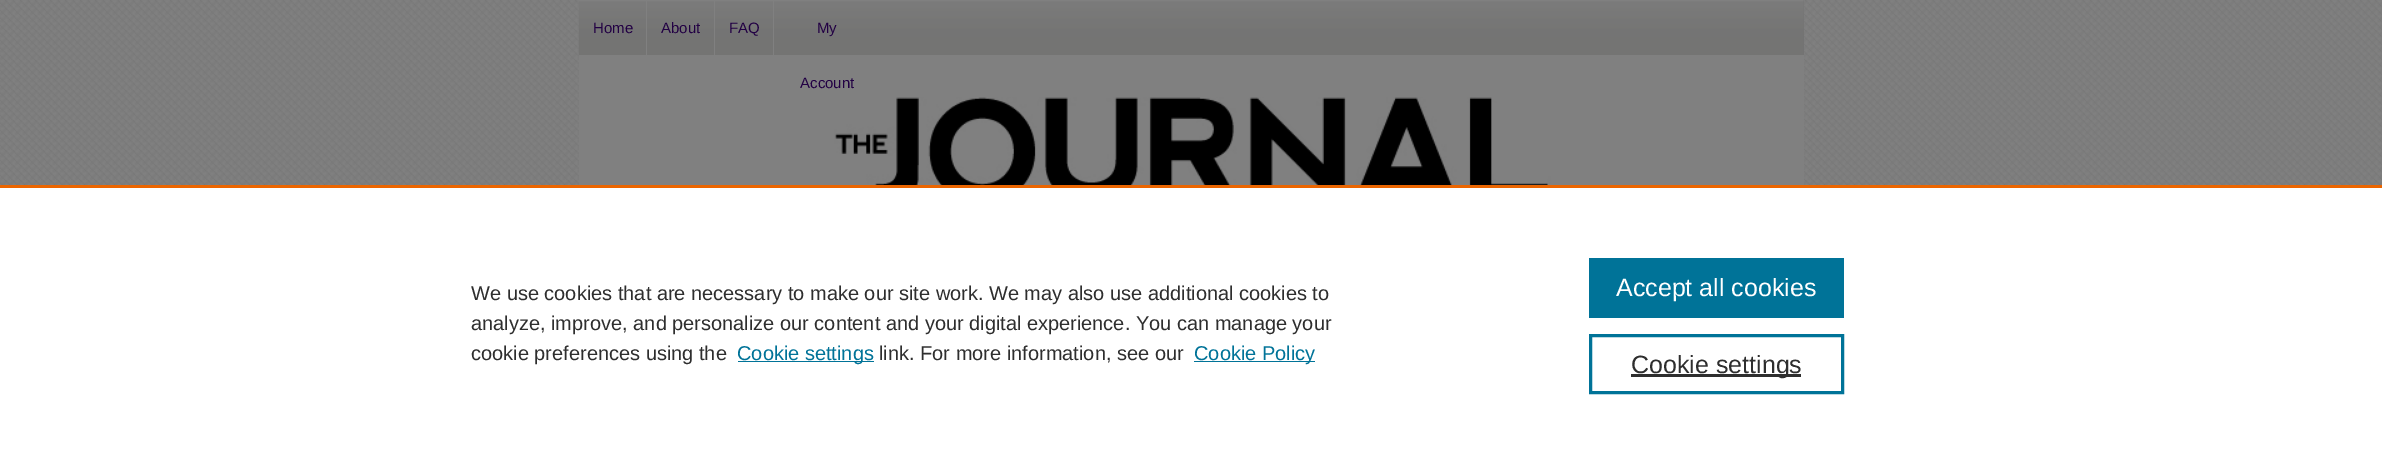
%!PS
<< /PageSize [2382 459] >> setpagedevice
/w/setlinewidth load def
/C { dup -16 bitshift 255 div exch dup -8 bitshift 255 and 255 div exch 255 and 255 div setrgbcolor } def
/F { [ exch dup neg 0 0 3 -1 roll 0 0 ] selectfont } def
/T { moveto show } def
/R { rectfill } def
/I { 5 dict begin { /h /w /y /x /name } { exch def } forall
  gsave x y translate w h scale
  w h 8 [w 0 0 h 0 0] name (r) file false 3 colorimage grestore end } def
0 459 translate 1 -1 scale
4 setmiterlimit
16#FFFFFF C
0 0 2382 459 R
(1.rgb) 0 0 2382 185 I
16#808080 C
579 0 1225 185 R
(2.rgb) 578 0 1226 55 I
646 0 1 55 R
/LiberationSans-Regular 15 F
16#220044 C
(Home) 593 33 T
16#808080 C
714 0 1 55 R
16#220044 C
(About) 661 33 T
16#808080 C
773 0 1 55 R
16#220044 C
(FAQ) 729 33 T
(My) 817 33 T
(Account) 800 88 T
(3.rgb) 834 97 717 88 I
16#EB6500 C
0 185 2382 3 R
/LiberationSans-Regular 20 F
16#2E2E2E C
(We use cookies that are necessary to make our site work. We may also use additional cookies to) 471 300 T
(analyze, improve, and personalize our content and your digital experience. You can manage your) 471 330 T
(cookie preferences using the) 471 360 T
16#007398 C
738 361 136 1 R
(Cookie settings) 737 360 T
16#2E2E2E C
(link. For more information, see our) 879 360 T
16#007398 C
1194 361 121 1 R
(Cookie Policy) 1194 360 T
1589 258 255 60 R
/LiberationSans-Regular 25 F
16#FFFFFF C
(Accept all cookies) 1616 296 T
16#007398 C
3 w
1590.5 335.5 252 57 rectstroke
16#2E2E2E C
1631 374 170 3 R
(Cookie settings) 1631 373 T
showpage
